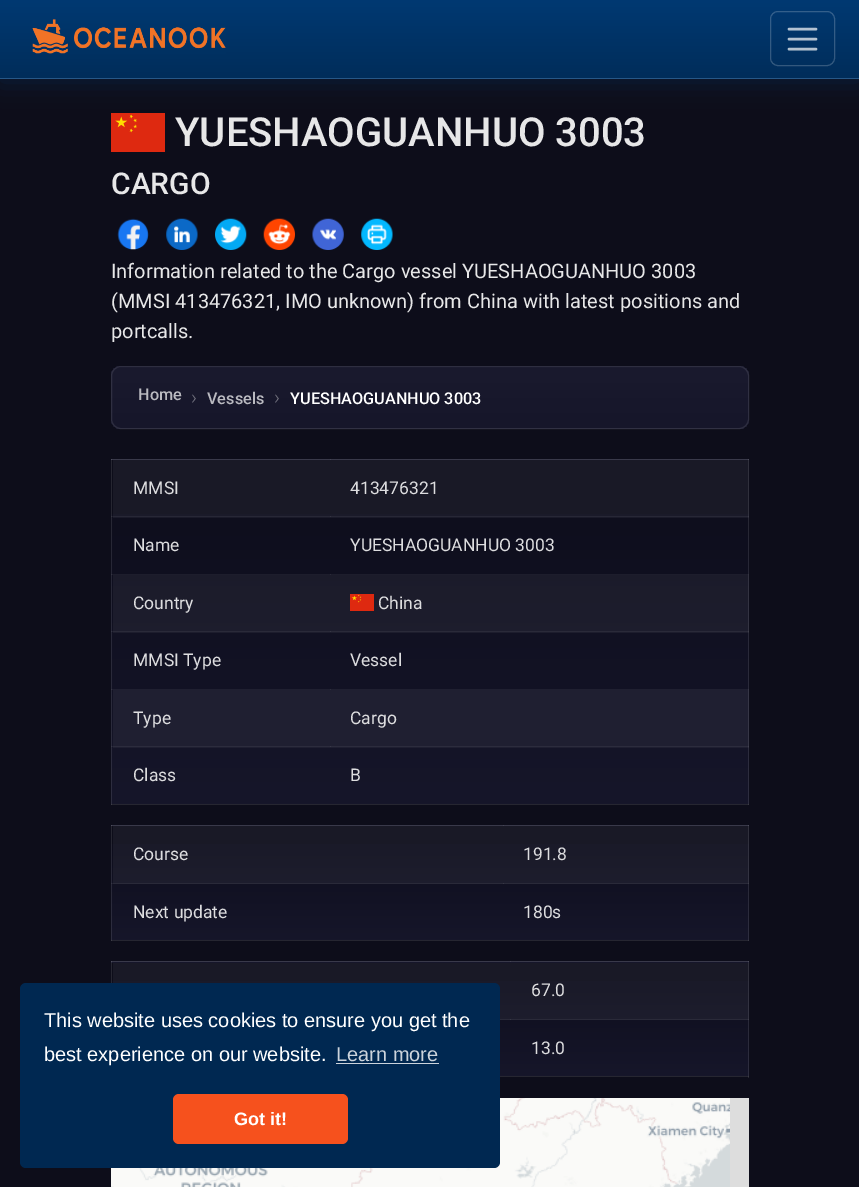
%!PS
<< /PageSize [859 1187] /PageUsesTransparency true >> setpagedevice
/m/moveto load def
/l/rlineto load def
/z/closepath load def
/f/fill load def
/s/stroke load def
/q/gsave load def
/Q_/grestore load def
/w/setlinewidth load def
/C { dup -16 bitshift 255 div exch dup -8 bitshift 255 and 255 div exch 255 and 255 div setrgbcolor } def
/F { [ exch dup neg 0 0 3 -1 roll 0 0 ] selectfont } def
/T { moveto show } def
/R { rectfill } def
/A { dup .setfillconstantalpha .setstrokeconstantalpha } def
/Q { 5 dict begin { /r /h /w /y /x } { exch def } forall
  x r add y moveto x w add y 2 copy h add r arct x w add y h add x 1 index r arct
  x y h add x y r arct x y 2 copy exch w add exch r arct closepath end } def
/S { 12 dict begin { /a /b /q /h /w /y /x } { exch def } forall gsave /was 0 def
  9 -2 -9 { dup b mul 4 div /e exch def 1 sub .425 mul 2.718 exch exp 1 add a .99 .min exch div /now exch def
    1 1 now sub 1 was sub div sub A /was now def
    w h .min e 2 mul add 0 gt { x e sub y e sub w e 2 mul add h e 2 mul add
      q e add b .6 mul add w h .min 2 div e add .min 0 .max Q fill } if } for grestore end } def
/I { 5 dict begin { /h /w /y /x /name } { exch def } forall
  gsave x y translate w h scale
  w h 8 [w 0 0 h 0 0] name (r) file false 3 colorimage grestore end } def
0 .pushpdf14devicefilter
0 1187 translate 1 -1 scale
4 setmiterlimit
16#0D0D1A C
0 0 859 1187 R
(2.rgb) 111 113 54 39 I
16#003972 C
0 3 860 78 0 12.5 .4 S
q 0 0 m 859 0 l 0 78 l -859 0 l z clip newpath
<< /ShadingType 2 /ColorSpace /DeviceRGB /Coords [430 0 430 78] /Extend [true true] /Function << /FunctionType 2 /Domain [0 1] /C0 [0 .224 .447] /C1 [0 .176 .353] /N 1 >> >> shfill Q_
16#265787 C
0 78 859 1 R
(1.rgb) 32 19 194 35 I
0.2 A
16#FFFFFF C
770.5 11.5 64 54 7.5 Q s
0.7 A
2.5 w
1 setlinecap
789 29 m 27 0 l 789 39 m 27 0 l 789 49 m 27 0 l s
/Roboto-Medium 40 F
1 A
16#E7E7E8 C
(YUESHAOGUANHUO 3003) 175 146 T
/Roboto-Medium 30 F
(CARGO) 111 194 T
(3.rgb) 117 218 32 32 I
(4.rgb) 166 218 32 32 I
(5.rgb) 215 218 32 32 I
(6.rgb) 263 218 32 32 I
(7.rgb) 312 218 32 32 I
(8.rgb) 361 218 32 32 I
/Roboto-Regular 20 F
(Information related to the Cargo vessel YUESHAOGUANHUO 3003) 111 278 T
(\(MMSI 413476321, IMO unknown\) from China with latest positions and) 111 308 T
(portcalls.) 111 338 T
q
111 366 638 63 10 Q clip newpath
q 111 366 m 638 0 l 0 2 l -638 0 l z clip newpath
<< /ShadingType 2 /ColorSpace /DeviceRGB /Coords [430 307 430 368] /Extend [true true] /Function << /FunctionType 2 /Domain [0 1] /C0 [.102 .102 .18] /C1 [.086 .086 .165] /N 1 >> >> shfill Q_
q 111 368 m 638 0 l 0 60 l -638 0 l z clip newpath
<< /ShadingType 2 /ColorSpace /DeviceRGB /Coords [430 367 430 428] /Extend [true true] /Function << /FunctionType 2 /Domain [0 1] /C0 [.102 .102 .18] /C1 [.086 .086 .165] /N 1 >> >> shfill Q_
q 111 428 m 638 0 l 0 1 l -638 0 l z clip newpath
<< /ShadingType 2 /ColorSpace /DeviceRGB /Coords [430 427 430 488] /Extend [true true] /Function << /FunctionType 2 /Domain [0 1] /C0 [.102 .102 .18] /C1 [.086 .086 .165] /N 1 >> >> shfill Q_
Q_
0.1 A
16#FFFFFF C
1 w
0 setlinecap
111.5 366.5 637 62 9.5 Q s
/Roboto-Medium 16.25 F
1 A
16#BABAC0 C
(Home) 138 400 T
/Roboto-Light 20 F
16#747480 C
(›) 191 404 T
/Roboto-Medium 16.25 F
16#BABAC0 C
(Vessels) 207 404 T
/Roboto-Light 20 F
16#747480 C
(›) 274 404 T
/Roboto-Medium 16.25 F
16#FFFFFF C
(YUESHAOGUANHUO 3003) 290 404 T
q 111 514 m 638 0 l 0 290 l -638 0 l z clip newpath
<< /ShadingType 2 /ColorSpace /DeviceRGB /Coords [430 460 430 804] /Extend [true true] /Function << /FunctionType 2 /Domain [0 1] /C0 [.051 .051 .102] /C1 [.086 .086 .165] /N 1 >> >> shfill Q_
16#2D2D3F C
111 459 638 1 R
0.05 A
16#FFFFFF C
113 460 636 58 R
113 575 636 58 R
1 A
16#1F1F31 C
113 690 636 58 R
0.1 A
16#FFFFFF C
748 459 1 346 R
111 804 638 1 R
111 459 1 346 R
0.06 A
330 459 419 1 R
111 459 220 1 R
/Roboto-Regular 17.5 F
1 A
16#DDDDDF C
(MMSI) 133 494 T
(413476321) 350 494 T
0.06 A
16#FFFFFF C
330 516 419 1 R
111 516 220 1 R
1 A
16#DDDDDF C
(Name) 133 551 T
(YUESHAOGUANHUO 3003) 350 551 T
0.06 A
16#FFFFFF C
330 574 419 1 R
111 574 220 1 R
1 A
16#DDDDDF C
(Country) 133 609 T
(9.rgb) 350 594 24 17 I
(China) 378 609 T
0.06 A
16#FFFFFF C
330 631 419 1 R
111 631 220 1 R
1 A
16#DDDDDF C
(MMSI Type) 133 666 T
(Vessel) 350 666 T
0.06 A
16#FFFFFF C
330 689 419 1 R
111 689 220 1 R
1 A
16#DDDDDF C
(Type) 133 724 T
(Cargo) 350 724 T
0.06 A
16#FFFFFF C
330 746 419 1 R
111 746 220 1 R
1 A
16#DDDDDF C
(Class) 133 781 T
(B) 350 781 T
q 111 844 m 638 0 l 0 96 l -638 0 l z clip newpath
<< /ShadingType 2 /ColorSpace /DeviceRGB /Coords [430 826 430 940] /Extend [true true] /Function << /FunctionType 2 /Domain [0 1] /C0 [.051 .051 .102] /C1 [.086 .086 .165] /N 1 >> >> shfill Q_
16#2D2D3F C
111 825 638 1 R
0.05 A
16#FFFFFF C
113 826 636 58 R
0.1 A
748 825 1 116 R
111 940 638 1 R
111 825 1 116 R
0.06 A
503 825 246 1 R
111 825 393 1 R
1 A
16#DDDDDF C
(Course) 133 860 T
(191.8) 523 860 T
0.06 A
16#FFFFFF C
503 883 246 1 R
111 883 393 1 R
1 A
16#DDDDDF C
(Next update) 133 918 T
(180s) 523 918 T
q 111 962 m 638 0 l 0 1 l -638 0 l z clip newpath
<< /ShadingType 2 /ColorSpace /DeviceRGB /Coords [430 849 430 963] /Extend [true true] /Function << /FunctionType 2 /Domain [0 1] /C0 [.051 .051 .102] /C1 [.086 .086 .165] /N 1 >> >> shfill Q_
q 111 981 m 638 0 l 0 95 l -638 0 l z clip newpath
<< /ShadingType 2 /ColorSpace /DeviceRGB /Coords [430 963 430 1076] /Extend [true true] /Function << /FunctionType 2 /Domain [0 1] /C0 [.051 .051 .102] /C1 [.086 .086 .165] /N 1 >> >> shfill Q_
16#2D2D3F C
111 961 638 1 R
0.05 A
16#FFFFFF C
113 963 636 57 R
0.1 A
748 961 1 117 R
500 1076 249 1 R
111 961 1 22 R
0.06 A
510 961 239 1 R
111 961 400 1 R
1 A
16#DDDDDF C
(67.0) 531 996 T
0.06 A
16#FFFFFF C
510 1019 239 1 R
500 1019 11 1 R
1 A
16#DDDDDF C
(13.0) 531 1054 T
16#DDDDDD C
730 1098 19 89 R
(10.rgb) 111 1168 299 19 I
(11.rgb) 410 1098 320 89 I
16#002851 C
20 983 480 185 6 Q f
/LiberationSans-Regular 20 F
16#FFFFFF C
(This website uses cookies to ensure you get the) 44 1027 T
(best experience on our website.) 44 1061 T
16#CCD4DC C
(Learn more) 336 1061 T
336 1063 103 1 R
16#F6511D C
173 1094 175 50 6 Q f
/LiberationSans-Bold 18 F
16#FFFFFF C
(Got it!) 234 1125 T
.poppdf14devicefilter showpage
